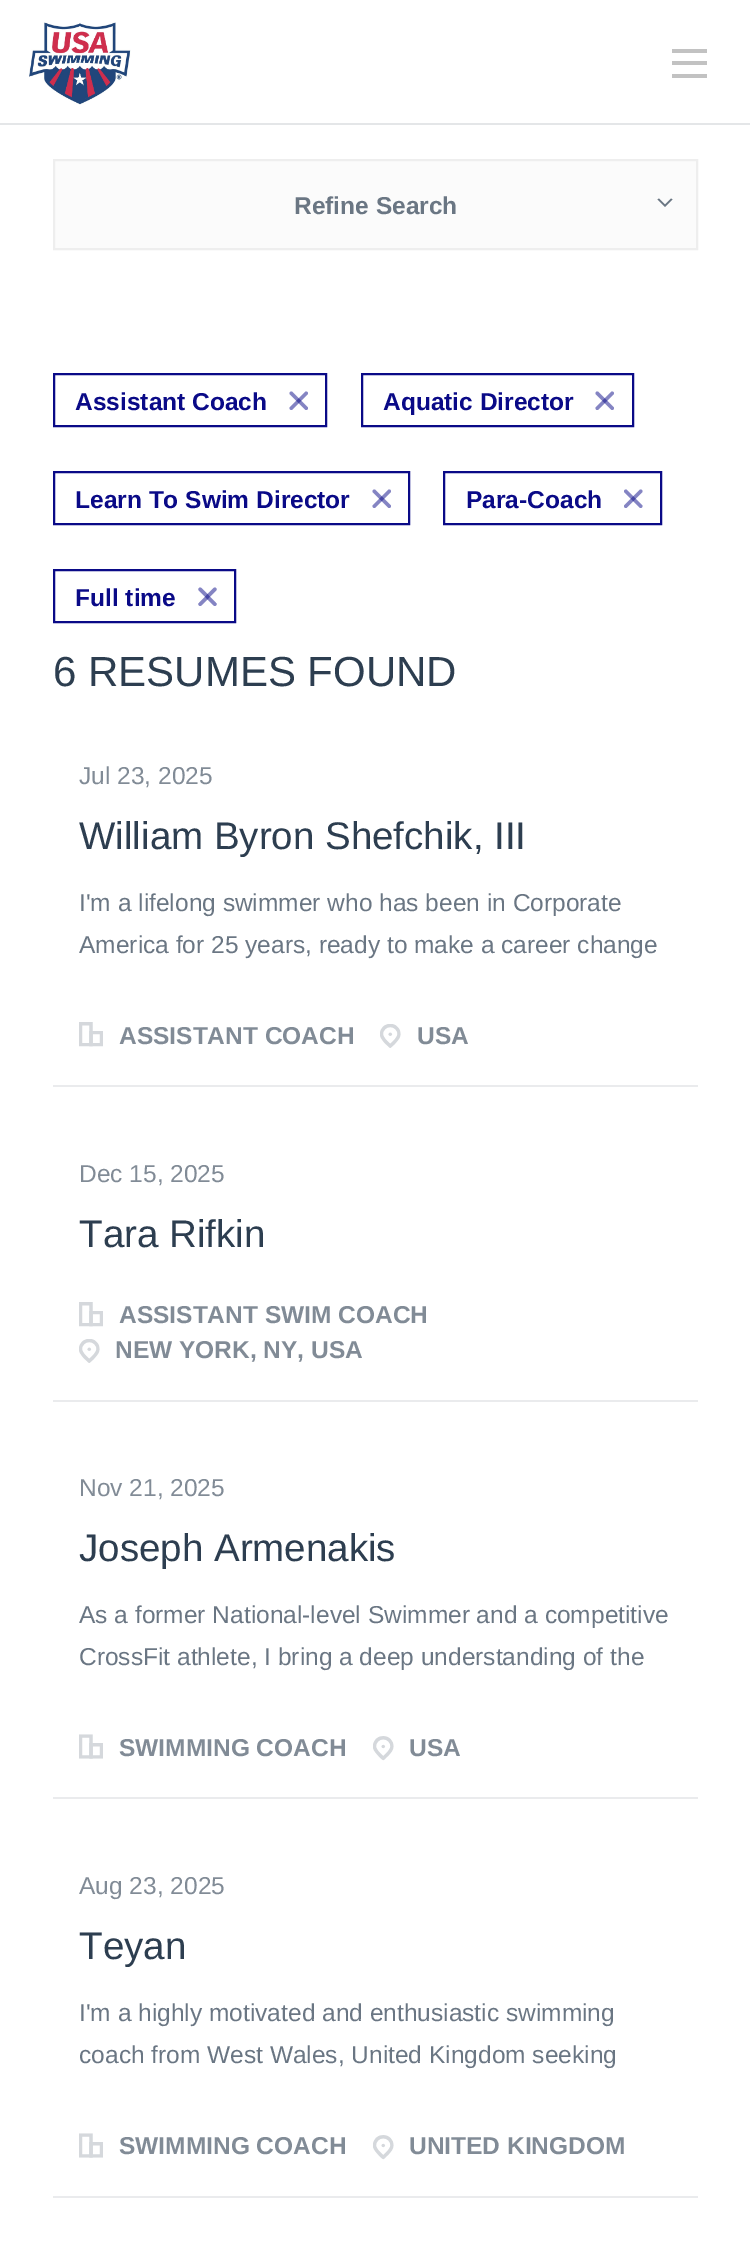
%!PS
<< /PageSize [750 2260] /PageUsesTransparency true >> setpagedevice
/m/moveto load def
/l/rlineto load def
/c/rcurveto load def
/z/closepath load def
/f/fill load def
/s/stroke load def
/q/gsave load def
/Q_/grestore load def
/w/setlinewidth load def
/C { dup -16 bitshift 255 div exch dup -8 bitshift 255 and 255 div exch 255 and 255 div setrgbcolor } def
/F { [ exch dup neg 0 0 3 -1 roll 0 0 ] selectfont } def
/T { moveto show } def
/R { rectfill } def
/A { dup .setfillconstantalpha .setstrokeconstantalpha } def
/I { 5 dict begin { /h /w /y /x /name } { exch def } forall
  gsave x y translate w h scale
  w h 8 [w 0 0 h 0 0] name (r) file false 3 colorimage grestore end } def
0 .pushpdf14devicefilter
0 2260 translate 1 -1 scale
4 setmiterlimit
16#FFFFFF C
0 0 750 2260 R
16#E4E6E8 C
0 123 750 2 R
(1.rgb) 29 22 102 83 I
16#C2C2C2 C
672 61 35 4 R
672 49 35 4 R
672 74 35 4 R
16#FBFBFB C
54 160 m 643 0 l 0 89 l -643 0 l z q f Q_
16#EEEEEE C
2 w
s
/LiberationSans-Bold 24.5 F
16#6A7683 C
(Refine Search) 294 214 T
672.5 199.5 m -7.5 7.5 l 0 -2.5 l 6 -6 l z 665 207 m -7.5 -7.5 l 1.5 -1 l 6 6 l z f
16#0A0A87 C
54 374 272 52 rectstroke
16#8585C3 C
290 407 m 15 -15 l .5 -.5 1.5 -.5 2.5 0 c .5 1 .5 2 0 2.5 c -15 15 l -.5 .5 -1.5 .5 -2.5 0 c -.5 -1 -.5 -2 0 -2.5 c z f
16#0A0A87 C
(Assistant Coach) 75 410 T
0.5 A
292.5 392 m 15 15 l .5 .5 .5 1.5 0 2.5 c -1 .5 -2 .5 -2.5 0 c -15 -15 l -.5 -.5 -.5 -1.5 0 -2.5 c 1 -.5 2 -.5 2.5 0 c z f
1 A
362 374 271 52 rectstroke
16#8585C3 C
596 407 m 15 -15 l .5 -.5 1.5 -.5 2.5 0 c .5 1 .5 2 0 2.5 c -15 15 l -.5 .5 -2 .5 -2.5 0 c -.5 -1 -.5 -2 0 -2.5 c z f
16#0A0A87 C
(Aquatic Director) 383 410 T
0.5 A
598.5 392 m 15 15 l .5 .5 .5 1.5 0 2.5 c -1 .5 -2 .5 -2.5 0 c -15 -15 l -.5 -.5 -.5 -1.5 0 -2.5 c .5 -.5 2 -.5 2.5 0 c z f
1 A
54 472 355 52 rectstroke
16#8585C3 C
373 505 m 15 -15 l .5 -.5 2 -.5 2.5 0 c .5 1 .5 2 0 2.5 c -15 15 l -.5 .5 -1.5 .5 -2.5 0 c -.5 -1 -.5 -2 0 -2.5 c z f
16#0A0A87 C
(Learn To Swim Director) 75 508 T
0.5 A
375.5 490 m 15 15 l .5 .5 .5 1.5 0 2.5 c -.5 .5 -2 .5 -2.5 0 c -15 -15 l -.5 -.5 -.5 -1.5 0 -2.5 c 1 -.5 2 -.5 2.5 0 c z f
1 A
444 472 217 52 rectstroke
16#8585C3 C
624.5 505 m 15 -15 l .5 -.5 1.5 -.5 2.5 0 c .5 1 .5 2 0 2.5 c -15 15 l -.5 .5 -1.5 .5 -2.5 0 c -.5 -1 -.5 -2 0 -2.5 c z f
16#0A0A87 C
(Para-Coach) 466 508 T
0.5 A
627 490 m 15 15 l .5 .5 .5 1.5 0 2.5 c -1 .5 -2 .5 -2.5 0 c -15 -15 l -.5 -.5 -.5 -1.5 0 -2.5 c 1 -.5 2 -.5 2.5 0 c z f
1 A
54 570 181 52 rectstroke
16#8585C3 C
199 603 m 14.5 -15 l 1 -.5 2 -.5 2.5 0 c 1 1 1 2 0 2.5 c -14.5 15 l -1 .5 -2 .5 -2.5 0 c -1 -1 -1 -2 0 -2.5 c z f
16#0A0A87 C
(Full time) 75 606 T
0.5 A
201.5 588 m 14.5 15 l 1 .5 1 1.5 0 2.5 c -.5 .5 -1.5 .5 -2.5 0 c -14.5 -15 l -1 -.5 -1 -1.5 0 -2.5 c .5 -.5 1.5 -.5 2.5 0 c z f
/LiberationSans-Regular 42 F
1 A
16#2D3E50 C
(6 RESUMES FOUND) 53 686 T
16#EAEBED C
53 1085 645 2 R
/LiberationSans-Regular 24.5 F
16#818B96 C
(Jul 23, 2025) 79 784 T
/LiberationSans-Regular 38.5 F
16#2D3E50 C
(William Byron Shefchik, III) 79 849 T
/LiberationSans-Regular 24.5 F
16#6A7683 C
(I'm a lifelong swimmer who has been in Corporate) 79 911 T
(America for 25 years, ready to make a career change) 79 953 T
(2.rgb) 79 1022 24 25 I
/LiberationSans-Bold 24.5 F
16#818B96 C
(ASSISTANT COACH) 119 1044 T
(3.rgb) 380 1024 21 24 I
(USA) 417 1044 T
16#EAEBED C
53 1400 645 2 R
/LiberationSans-Regular 24.5 F
16#818B96 C
(Dec 15, 2025) 79 1182 T
/LiberationSans-Regular 38.5 F
16#2D3E50 C
(Tara Rifkin) 79 1247 T
(2.rgb) 79 1302 24 25 I
/LiberationSans-Bold 24.5 F
16#818B96 C
(ASSISTANT SWIM COACH) 119 1323 T
(3.rgb) 79 1339 21 24 I
(NEW YORK, NY, USA) 115 1358 T
16#EAEBED C
53 1797 645 2 R
/LiberationSans-Regular 24.5 F
16#818B96 C
(Nov 21, 2025) 79 1496 T
/LiberationSans-Regular 38.5 F
16#2D3E50 C
(Joseph Armenakis) 79 1561 T
/LiberationSans-Regular 24.5 F
16#6A7683 C
(As a former National-level Swimmer and a competitive) 79 1623 T
(CrossFit athlete, I bring a deep understanding of the) 79 1665 T
(4.rgb) 79 1734 24 25 I
/LiberationSans-Bold 24.5 F
16#818B96 C
(SWIMMING COACH) 119 1756 T
(5.rgb) 373 1736 21 25 I
(USA) 409 1756 T
16#EAEBED C
53 2196 645 2 R
/LiberationSans-Regular 24.5 F
16#818B96 C
(Aug 23, 2025) 79 1894 T
/LiberationSans-Regular 38.5 F
16#2D3E50 C
(Teyan) 79 1959 T
/LiberationSans-Regular 24.5 F
16#6A7683 C
(I'm a highly motivated and enthusiastic swimming) 79 2021 T
(coach from West Wales, United Kingdom seeking) 79 2063 T
(4.rgb) 79 2133 24 25 I
/LiberationSans-Bold 24.5 F
16#818B96 C
(SWIMMING COACH) 119 2154 T
(5.rgb) 373 2135 21 25 I
(UNITED KINGDOM) 409 2154 T
.poppdf14devicefilter showpage
